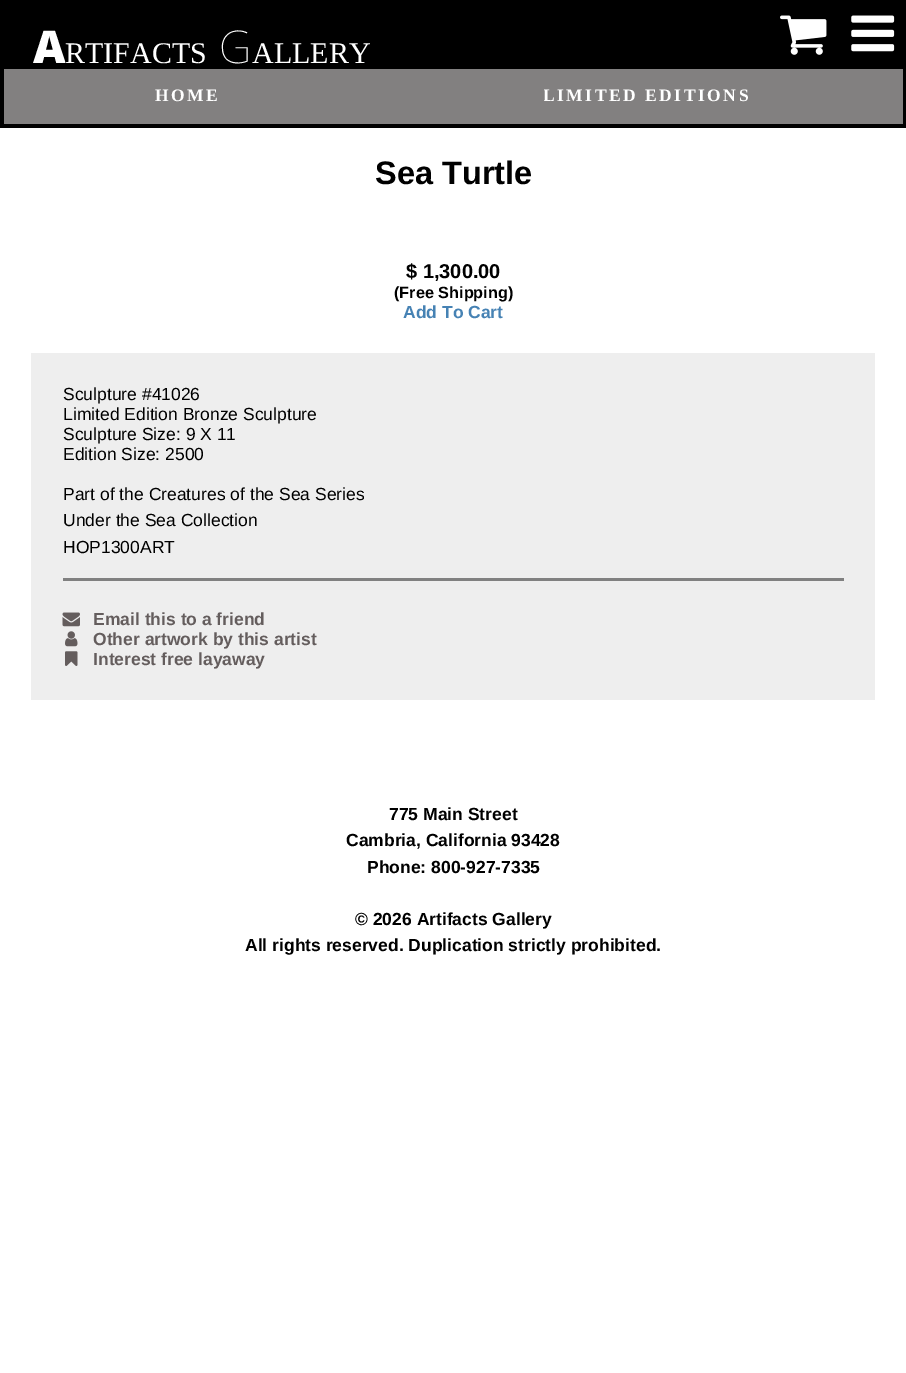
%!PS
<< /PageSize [906 1373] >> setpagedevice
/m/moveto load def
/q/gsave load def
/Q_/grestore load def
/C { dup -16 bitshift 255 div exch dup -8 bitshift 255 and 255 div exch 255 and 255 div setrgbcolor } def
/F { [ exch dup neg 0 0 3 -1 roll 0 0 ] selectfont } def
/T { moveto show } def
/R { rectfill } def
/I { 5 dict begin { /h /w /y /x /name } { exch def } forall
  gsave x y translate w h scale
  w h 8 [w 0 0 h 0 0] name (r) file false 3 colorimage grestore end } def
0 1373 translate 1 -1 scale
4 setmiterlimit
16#FFFFFF C
0 0 906 1373 R
16#000000 C
0 0 906 69 R
/NotoSans-Black 45 F
16#FFFFFF C
(A) 33 63 T
/LiberationSerif-Regular 30 F
(RTIFACTS) 65 63 T
/NotoSans-Thin 45 F
(G) 219 63 T
/LiberationSerif-Regular 30 F
(ALLERY) 252 63 T
(1.rgb) 780 15 47 40 I
(2.rgb) 851 15 44 37 I
16#828080 C
4 69 899 55 R
16#000000 C
903 69 3 59 R
0 124 906 4 R
0 69 4 59 R
/LiberationSerif-Bold 17.5 F
16#FFFFFF C
155 101 m 2.5 0 (HOME) ashow
q
544 86 207 20 rectclip
543 101 m 2.5 0 (LIMITED EDITIONS) ashow
Q_
/LiberationSans-Bold 32.5 F
16#000000 C
(Sea Turtle) 375 184 T
/LiberationSans-Bold 20 F
($ 1,300.00) 406 278 T
/LiberationSans-Bold 16.25 F
(\(Free Shipping\)) 394 298 T
/LiberationSans-Bold 17.5 F
16#4682B4 C
(Add To Cart) 403 318 T
16#EEEEEE C
31 353 844 347 R
/LiberationSans-Regular 17.5 F
16#000000 C
(Sculpture #41026) 63 400 T
(Limited Edition Bronze Sculpture) 63 420 T
(Sculpture Size: 9 X 11) 63 440 T
(Edition Size: 2500) 63 460 T
(Part of the Creatures of the Sea Series) 63 500 T
(Under the Sea Collection) 63 526 T
(HOP1300ART) 63 553 T
16#808080 C
63 578 781 3 R
(3.rgb) 62 612 18 15 I
/LiberationSans-Bold 17.5 F
16#645D5D C
(Email this to a friend) 93 625 T
(4.rgb) 65 631 13 16 I
(Other artwork by this artist) 93 645 T
(5.rgb) 65 651 13 15 I
(Interest free layaway) 93 665 T
16#000000 C
(775 Main Street) 389 820 T
(Cambria, California 93428) 346 846 T
(Phone: 800-927-7335) 367 873 T
(© 2026 Artifacts Gallery) 355 925 T
(All rights reserved. Duplication strictly prohibited.) 245 951 T
showpage
